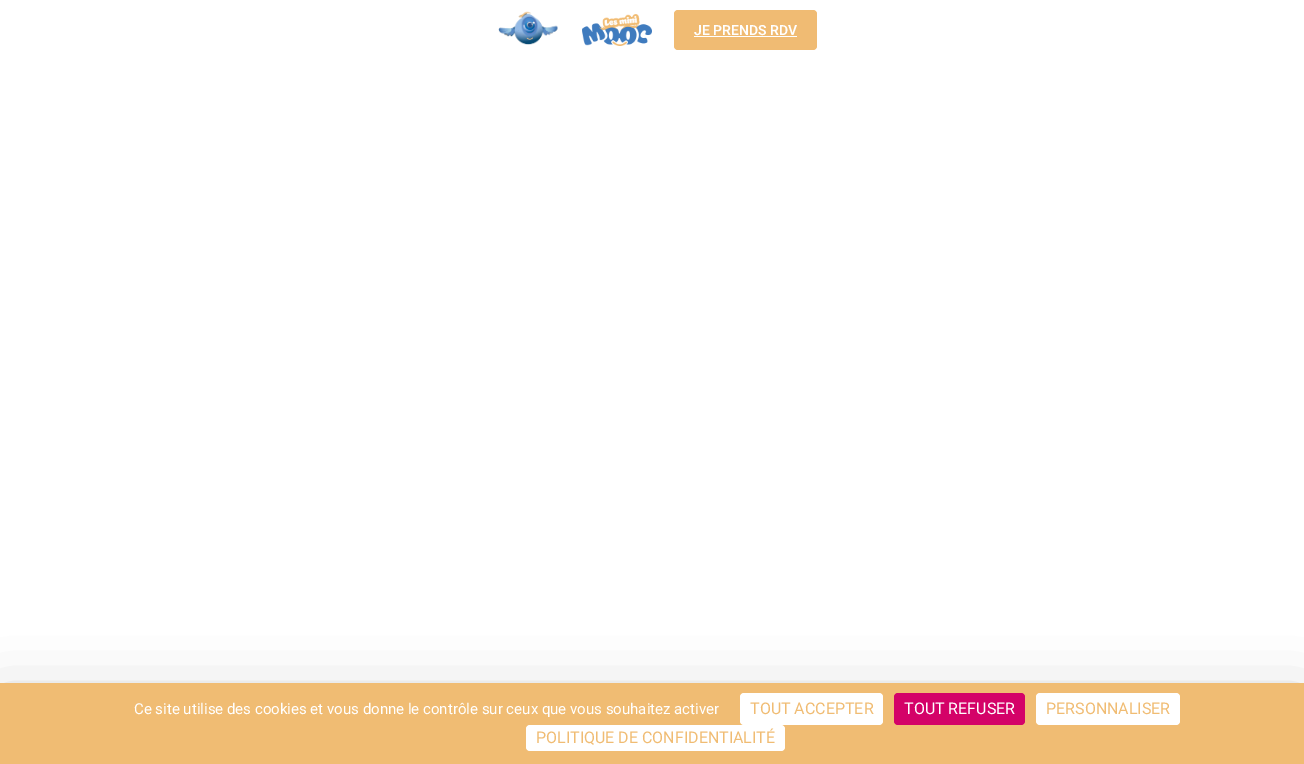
%!PS
<< /PageSize [1304 764] /PageUsesTransparency true >> setpagedevice
/f/fill load def
/C { dup -16 bitshift 255 div exch dup -8 bitshift 255 and 255 div exch 255 and 255 div setrgbcolor } def
/F { [ exch dup neg 0 0 3 -1 roll 0 0 ] selectfont } def
/T { moveto show } def
/R { rectfill } def
/A { dup .setfillconstantalpha .setstrokeconstantalpha } def
/Q { 5 dict begin { /r /h /w /y /x } { exch def } forall
  x r add y moveto x w add y 2 copy h add r arct x w add y h add x 1 index r arct
  x y h add x y r arct x y 2 copy exch w add exch r arct closepath end } def
/S { 12 dict begin { /a /b /q /h /w /y /x } { exch def } forall gsave /was 0 def
  9 -2 -9 { dup b mul 4 div /e exch def 1 sub .425 mul 2.718 exch exp 1 add a .99 .min exch div /now exch def
    1 1 now sub 1 was sub div sub A /was now def
    w h .min e 2 mul add 0 gt { x e sub y e sub w e 2 mul add h e 2 mul add
      q e add b .6 mul add w h .min 2 div e add .min 0 .max Q fill } if } for grestore end } def
/I { 5 dict begin { /h /w /y /x /name } { exch def } forall
  gsave x y translate w h scale
  w h 8 [w 0 0 h 0 0] name (r) file false 3 colorimage grestore end } def
0 .pushpdf14devicefilter
0 764 translate 1 -1 scale
4 setmiterlimit
16#FFFFFF C
0 0 1304 764 R
(1.rgb) 498 11 60 34 I
(2.rgb) 582 14 70 32 I
16#F0BB73 C
674 10 143 40 4 Q f
/Roboto-SemiBold 14 F
16#FFFFFF C
(JE PRENDS RDV) 694 35 T
694 36 103 1 R
16#000000 C
0 703 1304 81 0 30 .25 S
16#F0BC73 C
0 683 1304 81 R
/Roboto-Regular 15 F
16#FFFFFF C
(Ce site utilise des cookies et vous donne le contrôle sur ceux que vous souhaitez activer) 134 714 T
740 693 143 32 4 Q f
/Roboto-Regular 16 F
16#F0BC73 C
(TOUT ACCEPTER) 750 714 T
16#D40268 C
894 693 131 32 4 Q f
16#FFFFFF C
(TOUT REFUSER) 904 714 T
1036 693 144 32 4 Q f
16#F0BC73 C
(PERSONNALISER) 1046 714 T
16#FFFFFF C
526 725 259 26 4 Q f
16#F0BC73 C
(POLITIQUE DE CONFIDENTIALITÉ) 536 743 T
.poppdf14devicefilter showpage
